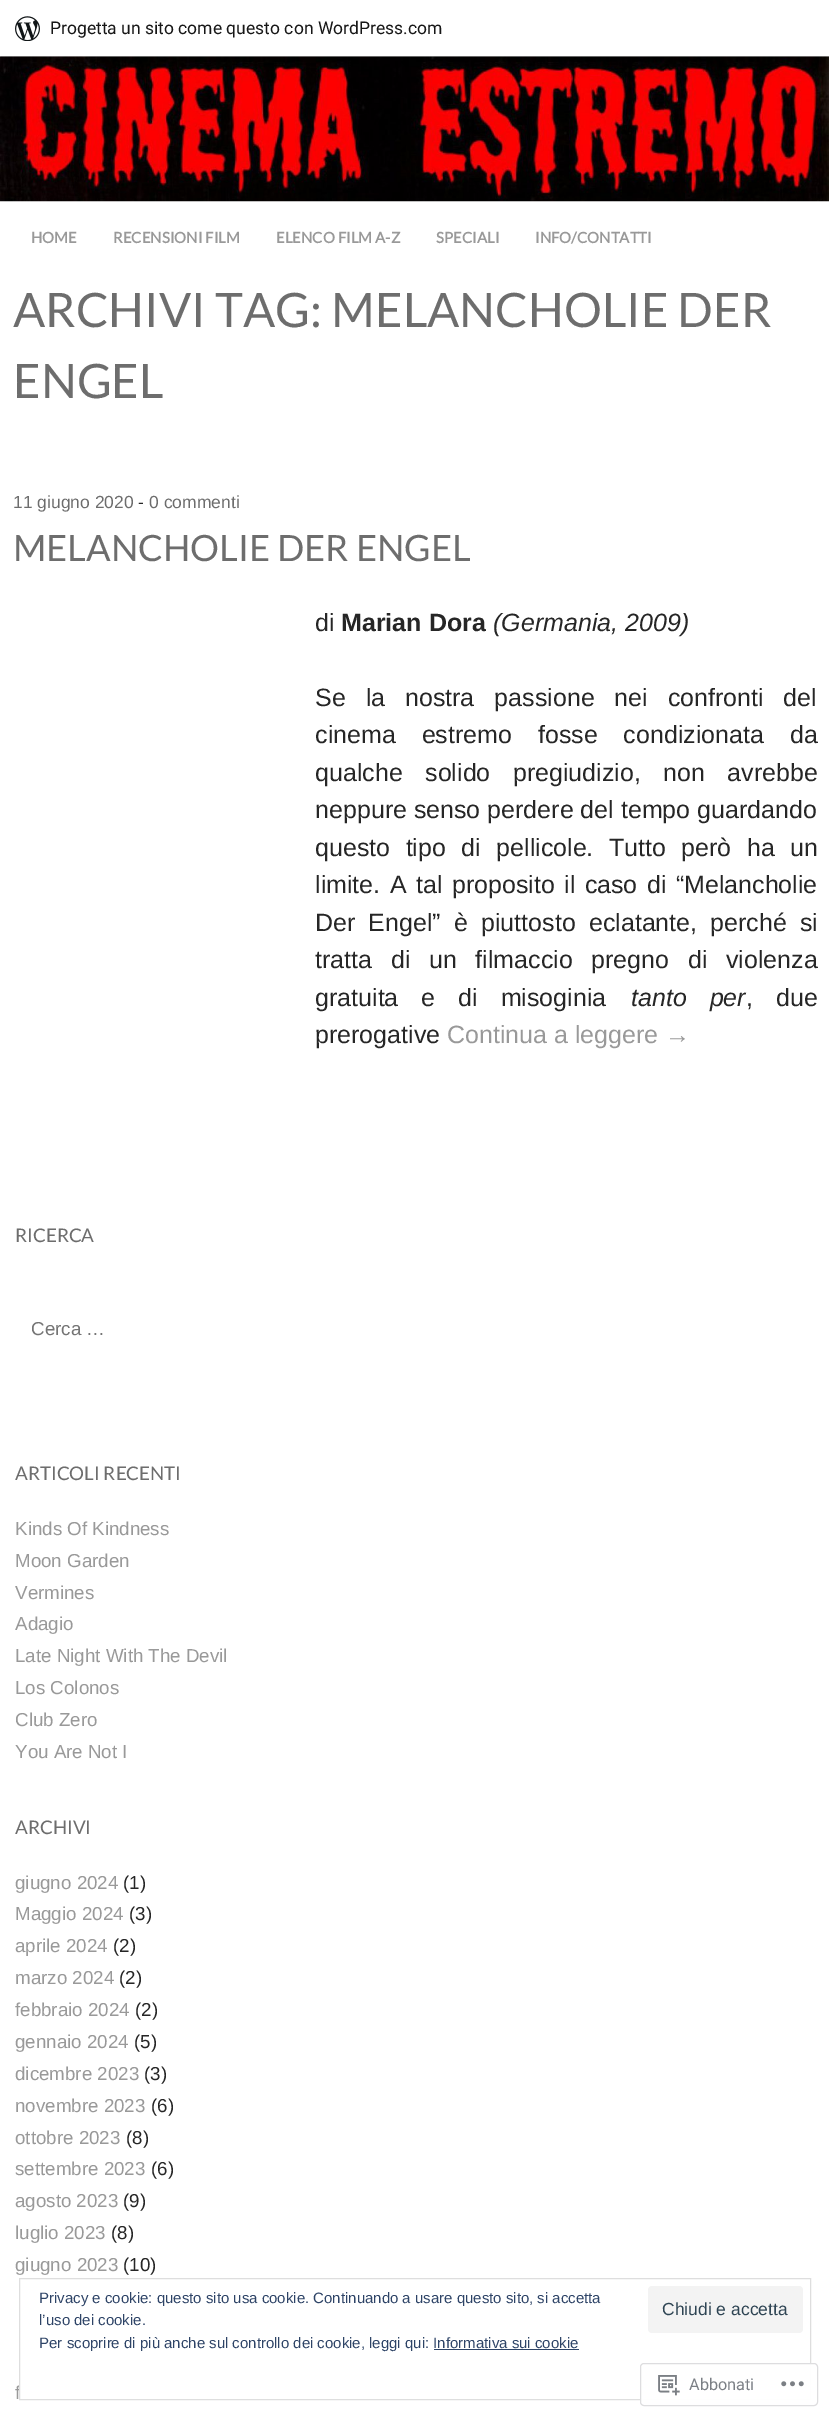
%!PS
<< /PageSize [829 2418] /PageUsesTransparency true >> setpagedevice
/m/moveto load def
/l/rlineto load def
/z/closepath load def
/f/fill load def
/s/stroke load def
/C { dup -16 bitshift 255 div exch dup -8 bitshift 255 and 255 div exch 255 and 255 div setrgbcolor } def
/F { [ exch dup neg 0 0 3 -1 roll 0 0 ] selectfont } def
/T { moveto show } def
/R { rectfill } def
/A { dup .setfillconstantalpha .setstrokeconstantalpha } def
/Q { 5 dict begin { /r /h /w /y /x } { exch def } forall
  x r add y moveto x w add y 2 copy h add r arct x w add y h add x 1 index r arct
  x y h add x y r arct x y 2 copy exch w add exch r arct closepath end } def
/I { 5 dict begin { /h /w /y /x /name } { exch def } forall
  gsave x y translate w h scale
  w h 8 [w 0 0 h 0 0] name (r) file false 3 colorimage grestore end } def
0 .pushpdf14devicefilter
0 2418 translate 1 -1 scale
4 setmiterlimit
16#FFFFFF C
0 0 829 2418 R
(2.rgb) 0 56 829 146 I
0.08 A
16#000000 C
1 56 m 0 4 l 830 0 l 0 -56 l -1 0 l 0 52 l z f
1 A
(1.rgb) 15 16 25 25 I
/Roboto-Regular 17.5 F
16#171717 C
(Progetta un sito come questo con WordPress.com) 50 34 T
/Lato-Bold 15 F
16#999999 C
(HOME) 31 243 T
(RECENSIONI FILM) 113 243 T
(ELENCO FILM A-Z) 276 243 T
(SPECIALI) 436 243 T
(INFO/CONTATTI) 535 243 T
/Lato-Regular 47.5 F
16#6D6D6D C
(ARCHIVI TAG: MELANCHOLIE DER) 13 327 T
(ENGEL) 13 398 T
/LiberationSans-Regular 17.5 F
(11 giugno 2020) 13 508 T
16#262626 C
(-) 138 508 T
16#6D6D6D C
(0 commenti) 149 508 T
/Lato-Regular 36.25 F
(MELANCHOLIE DER ENGEL) 13 561 T
/LiberationSans-Regular 25 F
16#262626 C
(di) 315 631 T
/LiberationSans-Bold 25 F
(Marian Dora) 341 631 T
/LiberationSans-Italic 25 F
(\(Germania, 2009\)) 493 631 T
/LiberationSans-Regular 25 F
315 706 m 13 0 32 (Se la nostra passione nei confronti del) widthshow
315 743 m 19 0 32 (cinema estremo fosse condizionata da) widthshow
315 781 m 15.5 0 32 (qualche solido pregiudizio, non avrebbe) widthshow
(neppure senso perdere del tempo guardando) 315 818 T
315 856 m 8.5 0 32 (questo tipo di pellicole. Tutto però ha un) widthshow
315 893 m 2.5 0 32 (limite. A tal proposito il caso di “Melancholie) widthshow
315 931 m 6.25 0 32 (Der Engel” è piuttosto eclatante, perché si) widthshow
315 968 m 11.75 0 32 (tratta di un filmaccio pregno di violenza) widthshow
315 1006 m 16 0 32 (gratuita e di misoginia) widthshow
/LiberationSans-Italic 25 F
631 1006 m 16 0 32 (tanto per) widthshow
/LiberationSans-Regular 25 F
746 1006 m 16 0 32 (, due) widthshow
(prerogative) 315 1043 T
16#999999 C
(Continua a leggere →) 447 1043 T
/Lato-Regular 18.75 F
16#6D6D6D C
(RICERCA) 15 1242 T
/LiberationSans-Regular 18.75 F
16#757575 C
(Cerca …) 31 1335 T
/Lato-Regular 18.75 F
16#6D6D6D C
(ARTICOLI RECENTI) 15 1480 T
/LiberationSans-Regular 18.75 F
16#999999 C
(Kinds Of Kindness) 15 1535 T
(Moon Garden) 15 1567 T
(Vermines) 15 1599 T
(Adagio) 15 1630 T
(Late Night With The Devil) 15 1662 T
(Los Colonos) 15 1694 T
(Club Zero) 15 1726 T
(You Are Not I) 15 1758 T
/Lato-Regular 18.75 F
16#6D6D6D C
(ARCHIVI) 15 1834 T
/LiberationSans-Regular 18.75 F
16#999999 C
(giugno 2024) 15 1889 T
16#262626 C
(\(1\)) 123 1889 T
16#999999 C
(Maggio 2024) 15 1920 T
16#262626 C
(\(3\)) 129 1920 T
16#999999 C
(aprile 2024) 15 1952 T
16#262626 C
(\(2\)) 113 1952 T
16#999999 C
(marzo 2024) 15 1984 T
16#262626 C
(\(2\)) 119 1984 T
16#999999 C
(febbraio 2024) 15 2016 T
16#262626 C
(\(2\)) 135 2016 T
16#999999 C
(gennaio 2024) 15 2048 T
16#262626 C
(\(5\)) 134 2048 T
16#999999 C
(dicembre 2023) 15 2080 T
16#262626 C
(\(3\)) 144 2080 T
16#999999 C
(novembre 2023) 15 2112 T
16#262626 C
(\(6\)) 151 2112 T
16#999999 C
(ottobre 2023) 15 2144 T
16#262626 C
(\(8\)) 126 2144 T
16#999999 C
(settembre 2023) 15 2175 T
16#262626 C
(\(6\)) 151 2175 T
16#999999 C
(agosto 2023) 15 2207 T
16#262626 C
(\(9\)) 123 2207 T
16#999999 C
(luglio 2023) 15 2239 T
16#262626 C
(\(8\)) 111 2239 T
16#999999 C
(giugno 2023) 15 2271 T
16#262626 C
(\(10\)) 123 2271 T
16#999999 C
(f) 15 2399 T
16#FFFFFF C
20 2385 1 6 R
16#DEDEDE C
19.5 2278.5 791 121 rectstroke
/LiberationSans-Regular 15 F
16#2E4467 C
(Privacy e cookie: questo sito usa cookie. Continuando a usare questo sito, si accetta) 39 2303 T
16#F3F3F3 C
648 2286 155 47 4 Q f
/LiberationSans-Regular 17.5 F
16#2E4453 C
(Chiudi e accetta) 662 2315 T
/LiberationSans-Regular 15 F
16#2E4467 C
(l’uso dei cookie.) 39 2325 T
(Per scoprire di più anche sul controllo dei cookie, leggi qui: Informativa sui cookie) 39 2348 T
434 2349 145 1 R
0.98 A
16#FFFFFF C
640.5 2363.5 177 42 3.5 Q f
1 A
16#DDDDDF C
640.5 2363.5 177 42 3.5 Q s
(3.rgb) 658 2375 22 21 I
/Roboto-Regular 16.25 F
16#7B7F85 C
(Abbonati) 689 2390 T
(4.rgb) 781 2381 23 6 I
.poppdf14devicefilter showpage
